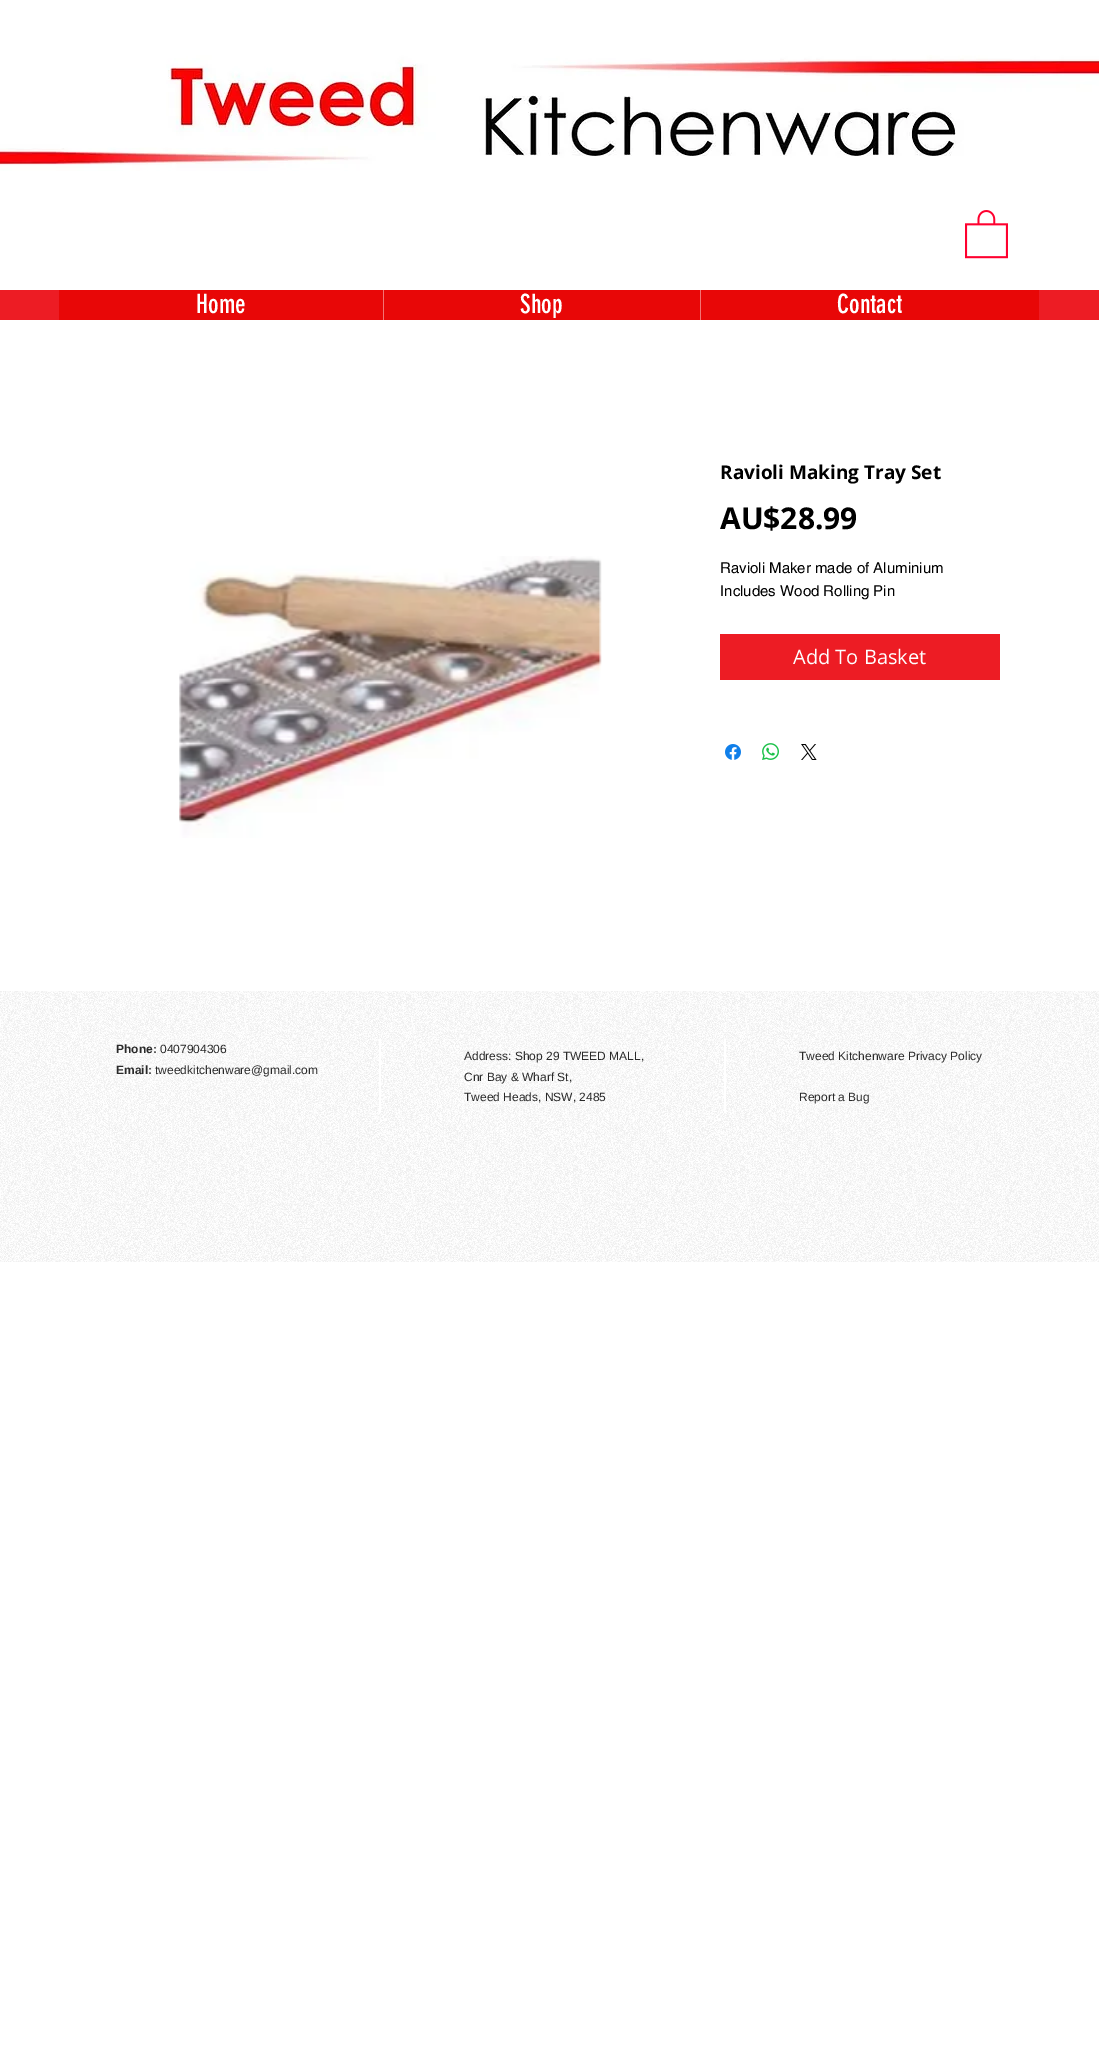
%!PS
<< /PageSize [1099 2071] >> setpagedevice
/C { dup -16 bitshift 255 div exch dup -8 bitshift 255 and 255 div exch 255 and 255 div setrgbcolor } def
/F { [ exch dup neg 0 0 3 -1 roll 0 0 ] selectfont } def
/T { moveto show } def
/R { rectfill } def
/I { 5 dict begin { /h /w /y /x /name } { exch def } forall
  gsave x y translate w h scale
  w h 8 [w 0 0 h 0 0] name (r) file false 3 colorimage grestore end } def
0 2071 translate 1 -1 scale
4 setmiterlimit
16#FFFFFF C
0 0 1099 2071 R
(1.rgb) 0 55 1099 116 I
(2.rgb) 965 210 43 49 I
16#ED1C24 C
0 290 1099 30 R
16#E80707 C
59 290 980 30 R
/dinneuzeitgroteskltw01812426-Regular 26 F
16#FFFFFF C
(Home) 196 313 T
16#F27474 C
383 290 1 30 R
16#FFFFFF C
(Shop) 520 313 T
16#F27474 C
700 290 1 30 R
16#FFFFFF C
(Contact) 837 313 T
(3.rgb) 179 556 423 282 I
/OpenSans-Bold 19 F
16#000000 C
(Ravioli Making Tray Set) 720 479 T
/OpenSans-Bold 30 F
(AU$28.99) 720 529 T
/helvetica-Regular 15 F
(Ravioli Maker made of Aluminium) 720 573 T
(Includes Wood Rolling Pin) 720 596 T
16#ED1C24 C
720 634 280 46 R
/OpenSans-Regular 20 F
16#FFFFFF C
(Add To Basket) 793 664 T
(4.rgb) 725 744 16 16 I
(5.rgb) 762 743 17 17 I
(6.rgb) 801 744 16 16 I
(7.rgb) 0 991 1099 271 I
/LiberationSans-Bold 12 F
16#2A2A2A C
(Phone:) 116 1053 T
/LiberationSans-Regular 12 F
(0407904306) 160 1053 T
/LiberationSans-Bold 12 F
(Email:) 116 1074 T
/LiberationSans-Regular 12 F
(tweedkitchenware@gmail.com) 155 1074 T
16#FFFFFF C
379 1039 2 74 R
16#2A2A2A C
(Address: Shop 29 TWEED MALL,) 464 1060 T
(Cnr Bay & Wharf St,) 464 1081 T
(Tweed Heads, NSW, 2485) 464 1101 T
16#FFFFFF C
724 1039 2 74 R
16#2A2A2A C
(Tweed Kitchenware Privacy Policy) 799 1060 T
(Report a Bug) 799 1101 T
showpage
